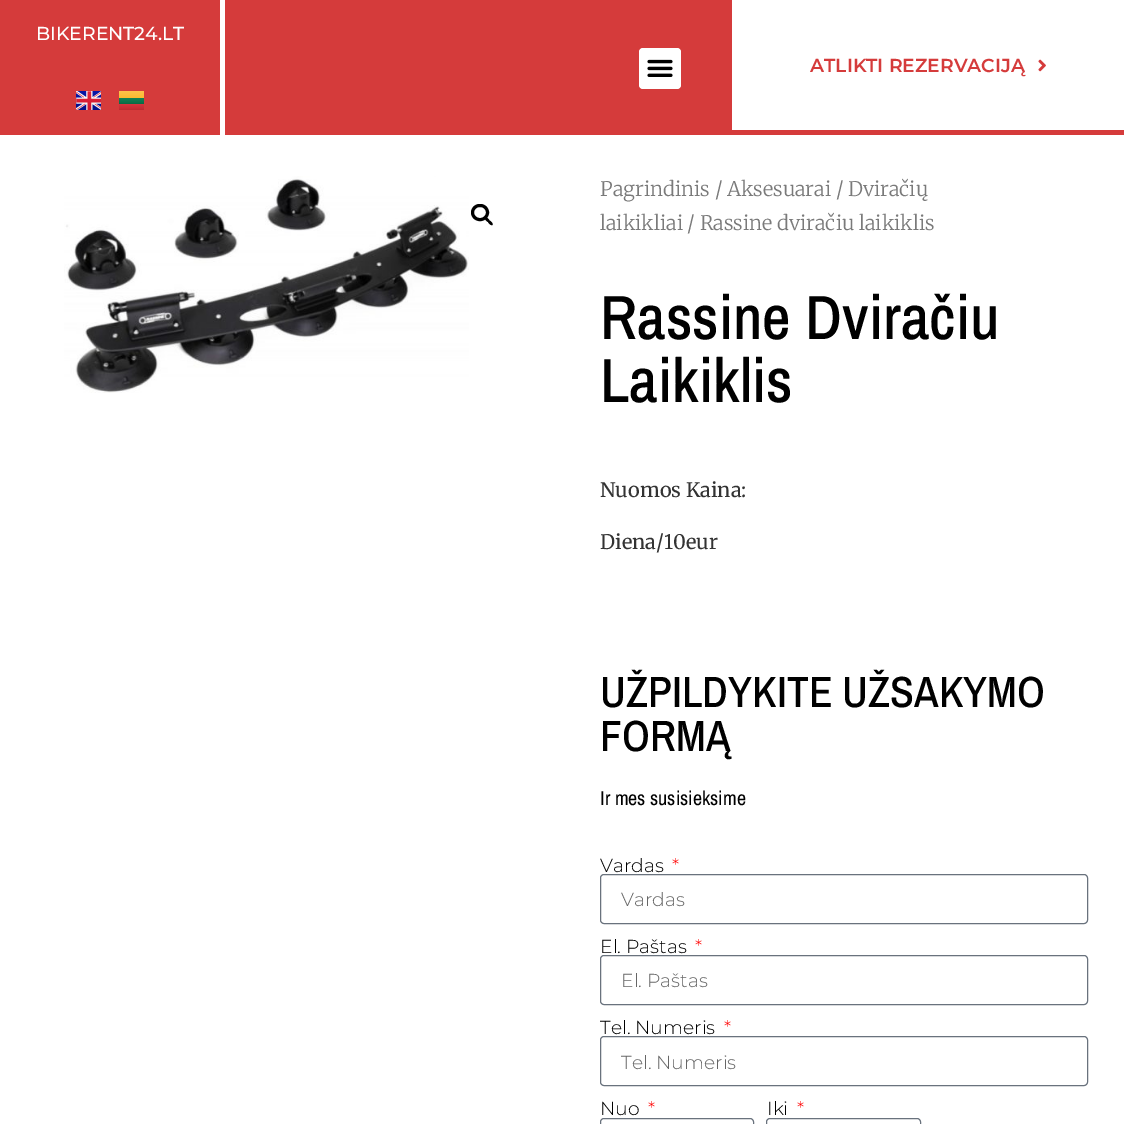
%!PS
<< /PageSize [1124 1124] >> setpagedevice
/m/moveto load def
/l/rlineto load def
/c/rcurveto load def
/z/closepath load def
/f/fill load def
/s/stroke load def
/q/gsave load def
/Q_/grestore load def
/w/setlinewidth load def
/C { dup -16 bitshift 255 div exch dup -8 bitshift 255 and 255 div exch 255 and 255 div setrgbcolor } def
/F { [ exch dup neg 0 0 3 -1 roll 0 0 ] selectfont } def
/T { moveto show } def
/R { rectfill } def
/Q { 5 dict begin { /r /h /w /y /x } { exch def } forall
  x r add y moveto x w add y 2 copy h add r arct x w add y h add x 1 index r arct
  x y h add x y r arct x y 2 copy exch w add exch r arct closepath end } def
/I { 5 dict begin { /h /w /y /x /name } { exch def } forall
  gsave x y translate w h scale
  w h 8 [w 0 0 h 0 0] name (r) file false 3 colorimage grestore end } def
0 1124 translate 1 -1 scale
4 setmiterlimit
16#FFFFFF C
0 0 1124 1124 R
16#D53B3B C
0 0 220 135 R
/Montserrat-Medium 18.75 F
16#FFFFFF C
(BIKERENT24.LT) 36 40 T
(1.rgb) 76 91 25 19 I
q 119 91 m 25 0 l 0 7 l -25 0 l z clip newpath
<< /ShadingType 2 /ColorSpace /DeviceRGB /Coords [132 91 132 98] /Extend [true true] /Function << /FunctionType 2 /Domain [0 1] /C0 [.996 .765 .294] /C1 [.988 .725 .192] /N 1 >> >> shfill Q_
q 119 98 m 25 0 l 0 6 l -25 0 l z clip newpath
<< /ShadingType 2 /ColorSpace /DeviceRGB /Coords [132 98 132 104] /Extend [true true] /Function << /FunctionType 2 /Domain [0 1] /C0 [.067 .514 .341] /C1 [.043 .416 .271] /N 1 >> >> shfill Q_
q 119 104 m 25 0 l 0 6 l -25 0 l z clip newpath
<< /ShadingType 2 /ColorSpace /DeviceRGB /Coords [132 104 132 110] /Extend [true true] /Function << /FunctionType 2 /Domain [0 1] /C0 [.847 .204 .239] /C1 [.753 .165 .196] /N 1 >> >> shfill Q_
16#D53B3B C
225 0 506 135 R
16#FFFFFF C
639 48 42 41 4 Q f
(2.rgb) 647 59 26 18 I
16#D53B3B C
731 130 393 5 R
731 0 1 135 R
/Montserrat-SemiBold 18.75 F
(ATLIKTI REZERVACIJĄ) 810 72 T
(3.rgb) 1038 59 8 13 I
(4.rgb) 64 176 405 217 I
16#000000 C
3 w
472.5 205.5 15 14 7 Q s
485 217.5 m 1.5 -1 4 2 4.5 3 c 1 .5 4 3 3 4.5 c -1.5 1 -4 -2 -4.5 -3 c -1 -.5 -4 -3 -3 -4.5 c z f
/Merriweather-Light 20 F
16#7A7A7A C
(Pagrindinis / Aksesuarai / Dviračių) 600 196 T
(laikikliai / Rassine dviračiu laikiklis) 600 230 T
/ArchivoNarrow-Medium 62.5 F
16#000000 C
(Rassine Dviračiu) 600 339 T
(Laikiklis) 600 402 T
/Merriweather-Regular 20 F
16#333333 C
(Nuomos Kaina:) 600 497 T
(Diena/10eur) 600 549 T
/ArchivoNarrow-Medium 43.75 F
16#000000 C
(UŽPILDYKITE UŽSAKYMO) 600 707 T
(FORMĄ) 600 751 T
/ArchivoNarrow-Regular 20 F
(Ir mes susisieksime) 600 805 T
/Montserrat-Light 18.75 F
(Vardas) 600 872 T
16#FF0000 C
(*) 672 872 T
16#69727D C
1 w
600.5 874.5 487 49 3.5 Q s
16#666666 C
(Vardas) 621 906 T
16#000000 C
(El. Paštas) 600 953 T
16#FF0000 C
(*) 695 953 T
16#69727D C
600.5 955.5 487 49 3.5 Q s
16#666666 C
(El. Paštas) 621 987 T
16#000000 C
(Tel. Numeris) 600 1034 T
16#FF0000 C
(*) 724 1034 T
16#69727D C
600.5 1036.5 487 49 3.5 Q s
16#666666 C
(Tel. Numeris) 621 1069 T
16#000000 C
(Nuo) 600 1115 T
16#FF0000 C
(*) 648 1115 T
16#69727D C
600.5 1118.5 153 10 3.5 Q s
16#000000 C
(Iki) 767 1115 T
16#FF0000 C
(*) 797 1115 T
16#69727D C
766.5 1118.5 154 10 3.5 Q s
showpage
